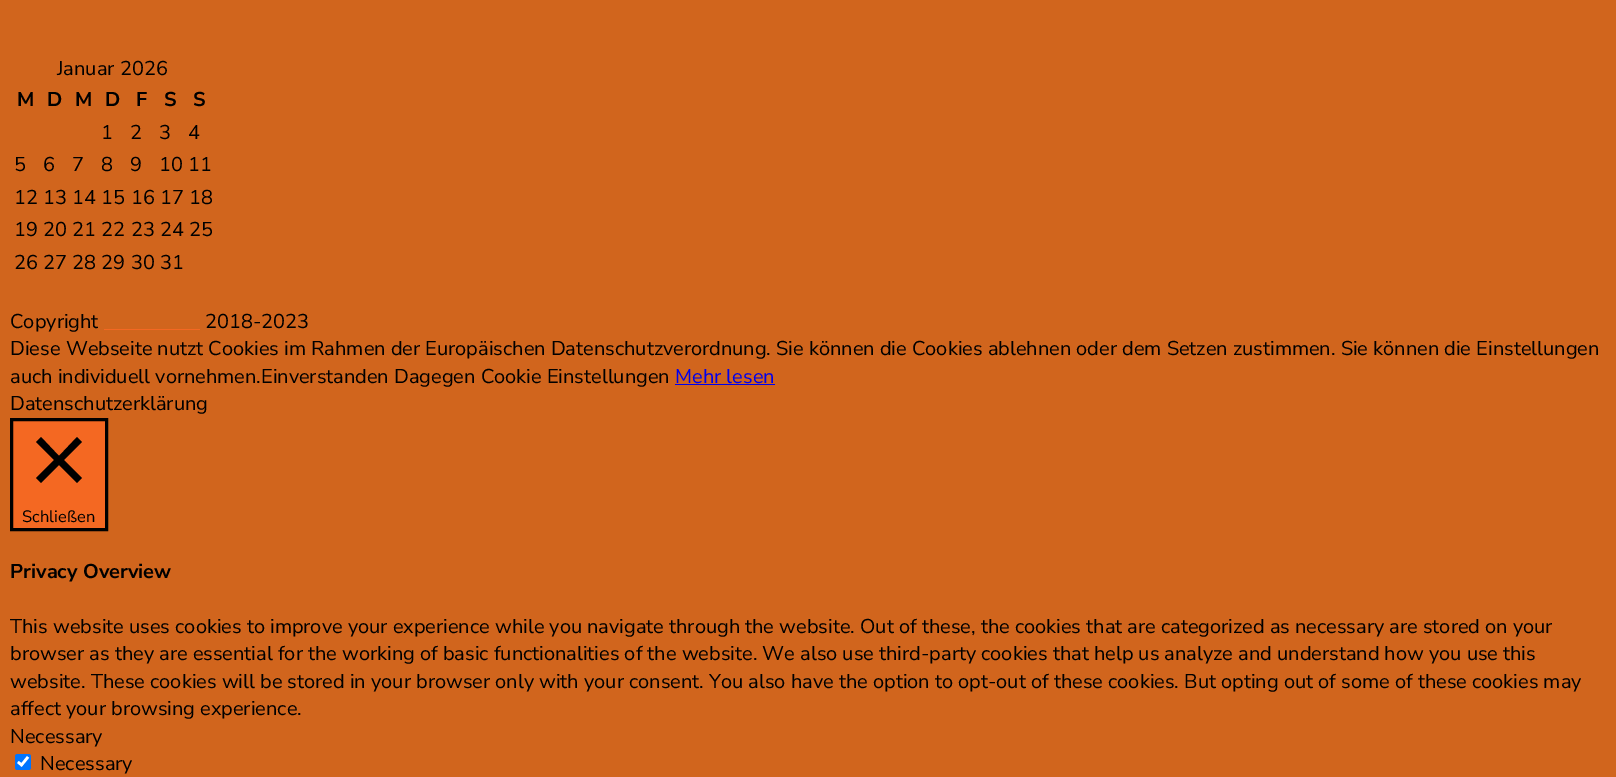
%!PS
<< /PageSize [1616 777] >> setpagedevice
/m/moveto load def
/l/rlineto load def
/z/closepath load def
/f/fill load def
/s/stroke load def
/q/gsave load def
/Q_/grestore load def
/w/setlinewidth load def
/C { dup -16 bitshift 255 div exch dup -8 bitshift 255 and 255 div exch 255 and 255 div setrgbcolor } def
/F { [ exch dup neg 0 0 3 -1 roll 0 0 ] selectfont } def
/T { moveto show } def
/R { rectfill } def
/Q { 5 dict begin { /r /h /w /y /x } { exch def } forall
  x r add y moveto x w add y 2 copy h add r arct x w add y h add x 1 index r arct
  x y h add x y r arct x y 2 copy exch w add exch r arct closepath end } def
0 777 translate 1 -1 scale
4 setmiterlimit
16#D1651D C
0 0 1616 777 R
/NunitoSans-Regular 20 F
16#000000 C
(Januar 2026) 57 75 T
/NunitoSans-Bold 20 F
(M) 17 106 T
(D) 47 106 T
(M) 75 106 T
(D) 105 106 T
(F) 136 106 T
(S) 164 106 T
(S) 193 106 T
/NunitoSans-Regular 20 F
(1) 101 139 T
(2) 130 139 T
(3) 159 139 T
(4) 188 139 T
(5) 14 171 T
(6) 43 171 T
(7) 72 171 T
(8) 101 171 T
(9) 130 171 T
(10 11) 159 171 T
(12 13 14 15 16 17 18) 14 204 T
(19 20 21 22 23 24 25) 14 236 T
(26 27 28 29 30 31) 14 269 T
(Copyright) 10 328 T
(2018-2023) 205 328 T
16#F46822 C
104 329 96 1 R
16#000000 C
(Diese Webseite nutzt Cookies im Rahmen der Europäischen Datenschutzverordnung. Sie können die Cookies ablehnen oder dem Setzen zustimmen. Sie können die Einstellungen) 10 355 T
(auch individuell vornehmen.Einverstanden Dagegen Cookie Einstellungen) 10 383 T
16#0000EE C
(Mehr lesen) 675 383 T
675 384 100 1 R
16#000000 C
(Datenschutzerklärung) 10 410 T
16#F46822 C
11.5 419.5 m 95 0 l 0 110 l -95 0 l z q f Q_
16#000000 C
3 w
s
82 442 m -5 -5 l -18 19 l -18 -19 l -5 5 l 18 18 l -18 18 l 5 5 l 18 -18 l 18 18 l 5 -5 l -18 -18 l z f
/NunitoSans-Regular 16.5 F
(Schließen) 22 522 T
/NunitoSans-Bold 20 F
(Privacy Overview) 10 578 T
/NunitoSans-Regular 20 F
(This website uses cookies to improve your experience while you navigate through the website. Out of these, the cookies that are categorized as necessary are stored on your) 10 633 T
(browser as they are essential for the working of basic functionalities of the website. We also use third-party cookies that help us analyze and understand how you use this) 10 660 T
(website. These cookies will be stored in your browser only with your consent. You also have the option to opt-out of these cookies. But opting out of some of these cookies may) 10 688 T
(affect your browsing experience.) 10 715 T
(Necessary) 10 743 T
16#0075FF C
15 754 16 16 2.5 Q f
16#FFFFFF C
2.6 w
18 762 m 3.5 3 l 6.5 -8 l s
16#000000 C
(Necessary) 40 770 T
showpage
